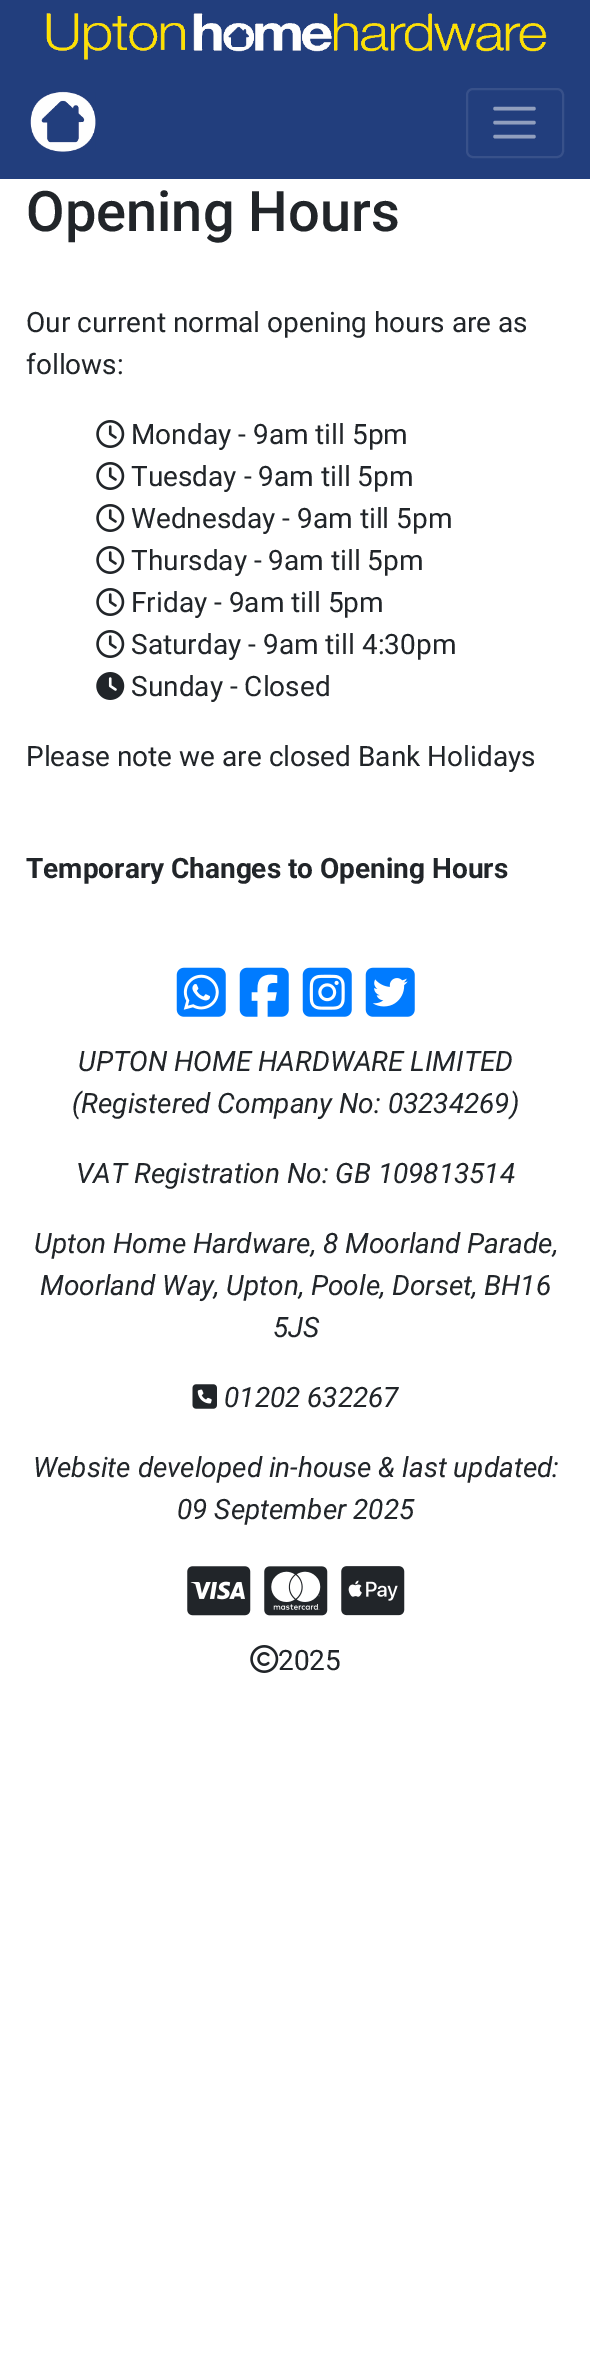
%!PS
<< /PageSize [590 2371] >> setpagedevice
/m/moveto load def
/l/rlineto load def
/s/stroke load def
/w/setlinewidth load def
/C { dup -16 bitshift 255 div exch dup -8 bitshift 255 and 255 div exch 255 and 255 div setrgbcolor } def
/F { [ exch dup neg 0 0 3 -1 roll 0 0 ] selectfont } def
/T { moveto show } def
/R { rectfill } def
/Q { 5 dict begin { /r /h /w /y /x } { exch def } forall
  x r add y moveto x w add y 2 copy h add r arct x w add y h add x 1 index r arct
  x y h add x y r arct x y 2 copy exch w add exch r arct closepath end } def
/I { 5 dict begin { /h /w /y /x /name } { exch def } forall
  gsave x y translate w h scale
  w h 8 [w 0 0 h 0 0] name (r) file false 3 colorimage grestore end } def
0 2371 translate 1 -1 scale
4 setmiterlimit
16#FFFFFF C
0 0 590 2371 R
16#223E7D C
0 0 590 179 R
(1.rgb) 46 13 501 47 I
(2.rgb) 30 91 66 61 I
16#38518A C
2 w
467 89 96 68 6 Q s
16#919FBE C
3.5 w
1 setlinecap
495 108.5 m 39 0 l 495 122.5 m 39 0 l 495 136.5 m 39 0 l s
/Roboto-Medium 56 F
16#212529 C
(Opening Hours) 26 231 T
/Roboto-Regular 28 F
(Our current normal opening hours are as) 26 332 T
(follows:) 26 374 T
(3.rgb) 96 420 29 28 I
(Monday - 9am till 5pm) 131 444 T
(3.rgb) 96 462 29 28 I
(Tuesday - 9am till 5pm) 131 486 T
(3.rgb) 96 504 29 28 I
(Wednesday - 9am till 5pm) 131 528 T
(3.rgb) 96 546 29 28 I
(Thursday - 9am till 5pm) 131 570 T
(3.rgb) 96 588 29 28 I
(Friday - 9am till 5pm) 131 612 T
(3.rgb) 96 630 29 28 I
(Saturday - 9am till 4:30pm) 131 654 T
(4.rgb) 96 672 29 28 I
(Sunday - Closed) 131 696 T
(Please note we are closed Bank Holidays) 26 766 T
/Roboto-Bold 28 F
(Temporary Changes to Opening Hours) 26 878 T
(5.rgb) 176 967 50 50 I
(6.rgb) 239 967 50 50 I
(7.rgb) 302 967 50 50 I
(8.rgb) 365 967 50 50 I
/Roboto-Italic 28 F
(UPTON HOME HARDWARE LIMITED) 78 1071 T
(\(Registered Company No: 03234269\)) 72 1113 T
(VAT Registration No: GB 109813514) 76 1183 T
(Upton Home Hardware, 8 Moorland Parade,) 34 1253 T
(Moorland Way, Upton, Poole, Dorset, BH16) 40 1295 T
(5JS) 273 1337 T
(9.rgb) 192 1384 25 25 I
(01202 632267) 224 1407 T
(Website developed in-house & last updated:) 33 1477 T
(09 September 2025) 177 1519 T
(10.rgb) 187 1566 64 50 I
(11.rgb) 264 1566 64 50 I
(12.rgb) 341 1566 64 50 I
(13.rgb) 250 1645 29 28 I
/Roboto-Regular 28 F
(2025) 278 1670 T
showpage
